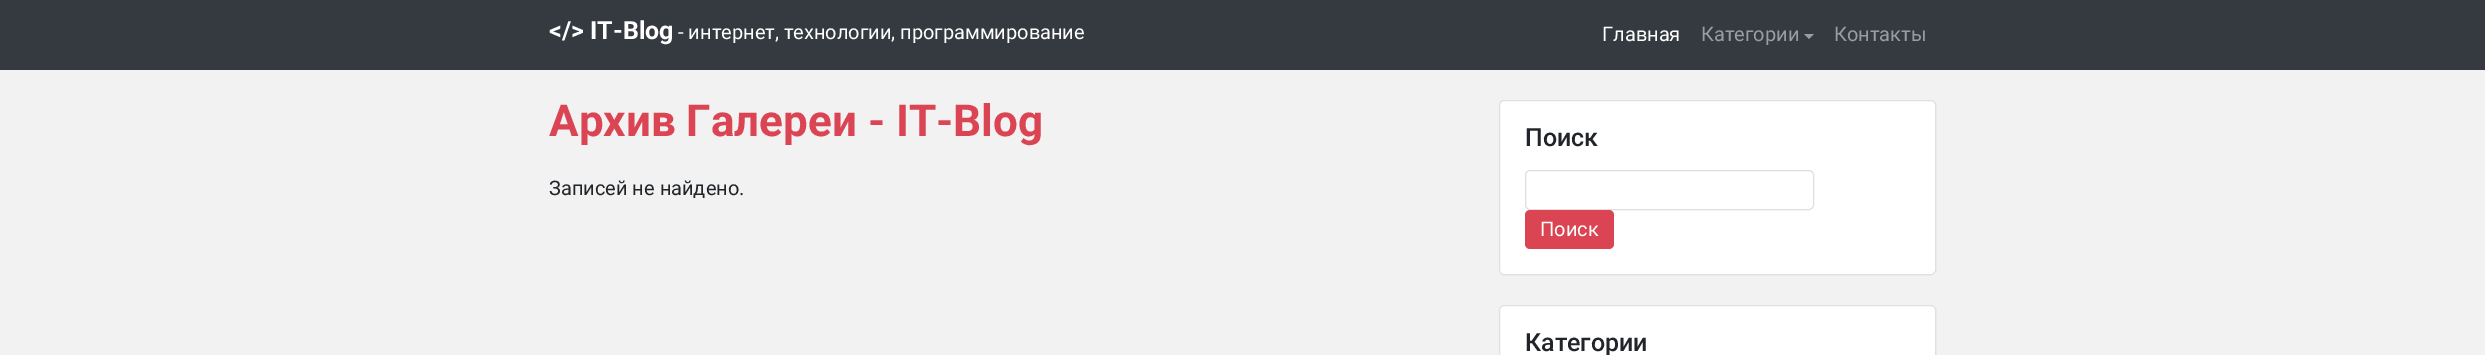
%!PS
<< /PageSize [2485 355] /PageUsesTransparency true >> setpagedevice
/m/moveto load def
/l/rlineto load def
/z/closepath load def
/f/fill load def
/s/stroke load def
/C { dup -16 bitshift 255 div exch dup -8 bitshift 255 and 255 div exch 255 and 255 div setrgbcolor } def
/F { [ exch dup neg 0 0 3 -1 roll 0 0 ] selectfont } def
/T { moveto show } def
/R { rectfill } def
/A { dup .setfillconstantalpha .setstrokeconstantalpha } def
/Q { 5 dict begin { /r /h /w /y /x } { exch def } forall
  x r add y moveto x w add y 2 copy h add r arct x w add y h add x 1 index r arct
  x y h add x y r arct x y 2 copy exch w add exch r arct closepath end } def
0 .pushpdf14devicefilter
0 355 translate 1 -1 scale
4 setmiterlimit
16#F2F2F2 C
0 0 2485 355 R
16#343A40 C
0 0 2485 70 R
/Roboto-Bold 25 F
16#FFFFFF C
(</> IT-Blog) 549 39 T
/Roboto-Regular 20 F
(- интернет, технологии, программирование) 678 39 T
(Главная) 1602 41 T
16#9A9DA0 C
(Категории) 1701 41 T
1804 34 m 10 0 l -5 5 l z f
(Контакты) 1834 41 T
/Roboto-Bold 44 F
16#DA4453 C
(Архив Галереи - IT-Blog) 549 136 T
/Roboto-Regular 20 F
16#212529 C
(Записей не найдено.) 549 195 T
16#FFFFFF C
1499 100 437 175 5 Q f
0.12 A
16#000000 C
1499.5 100.5 436 174 4.5 Q s
/Roboto-Medium 25 F
1 A
16#212529 C
(Поиск) 1525 146 T
16#DFDFDF C
1525.5 170.5 288 39 4.5 Q s
16#DA4453 C
1525 210 89 39 5 Q f
/Roboto-Regular 20 F
16#FFFFFF C
(Поиск) 1540 236 T
1499 305 437 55 5 Q f
0.12 A
16#000000 C
1499.5 305.5 436 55 4.5 Q s
/Roboto-Medium 25 F
1 A
16#212529 C
(Категории) 1525 351 T
.poppdf14devicefilter showpage
